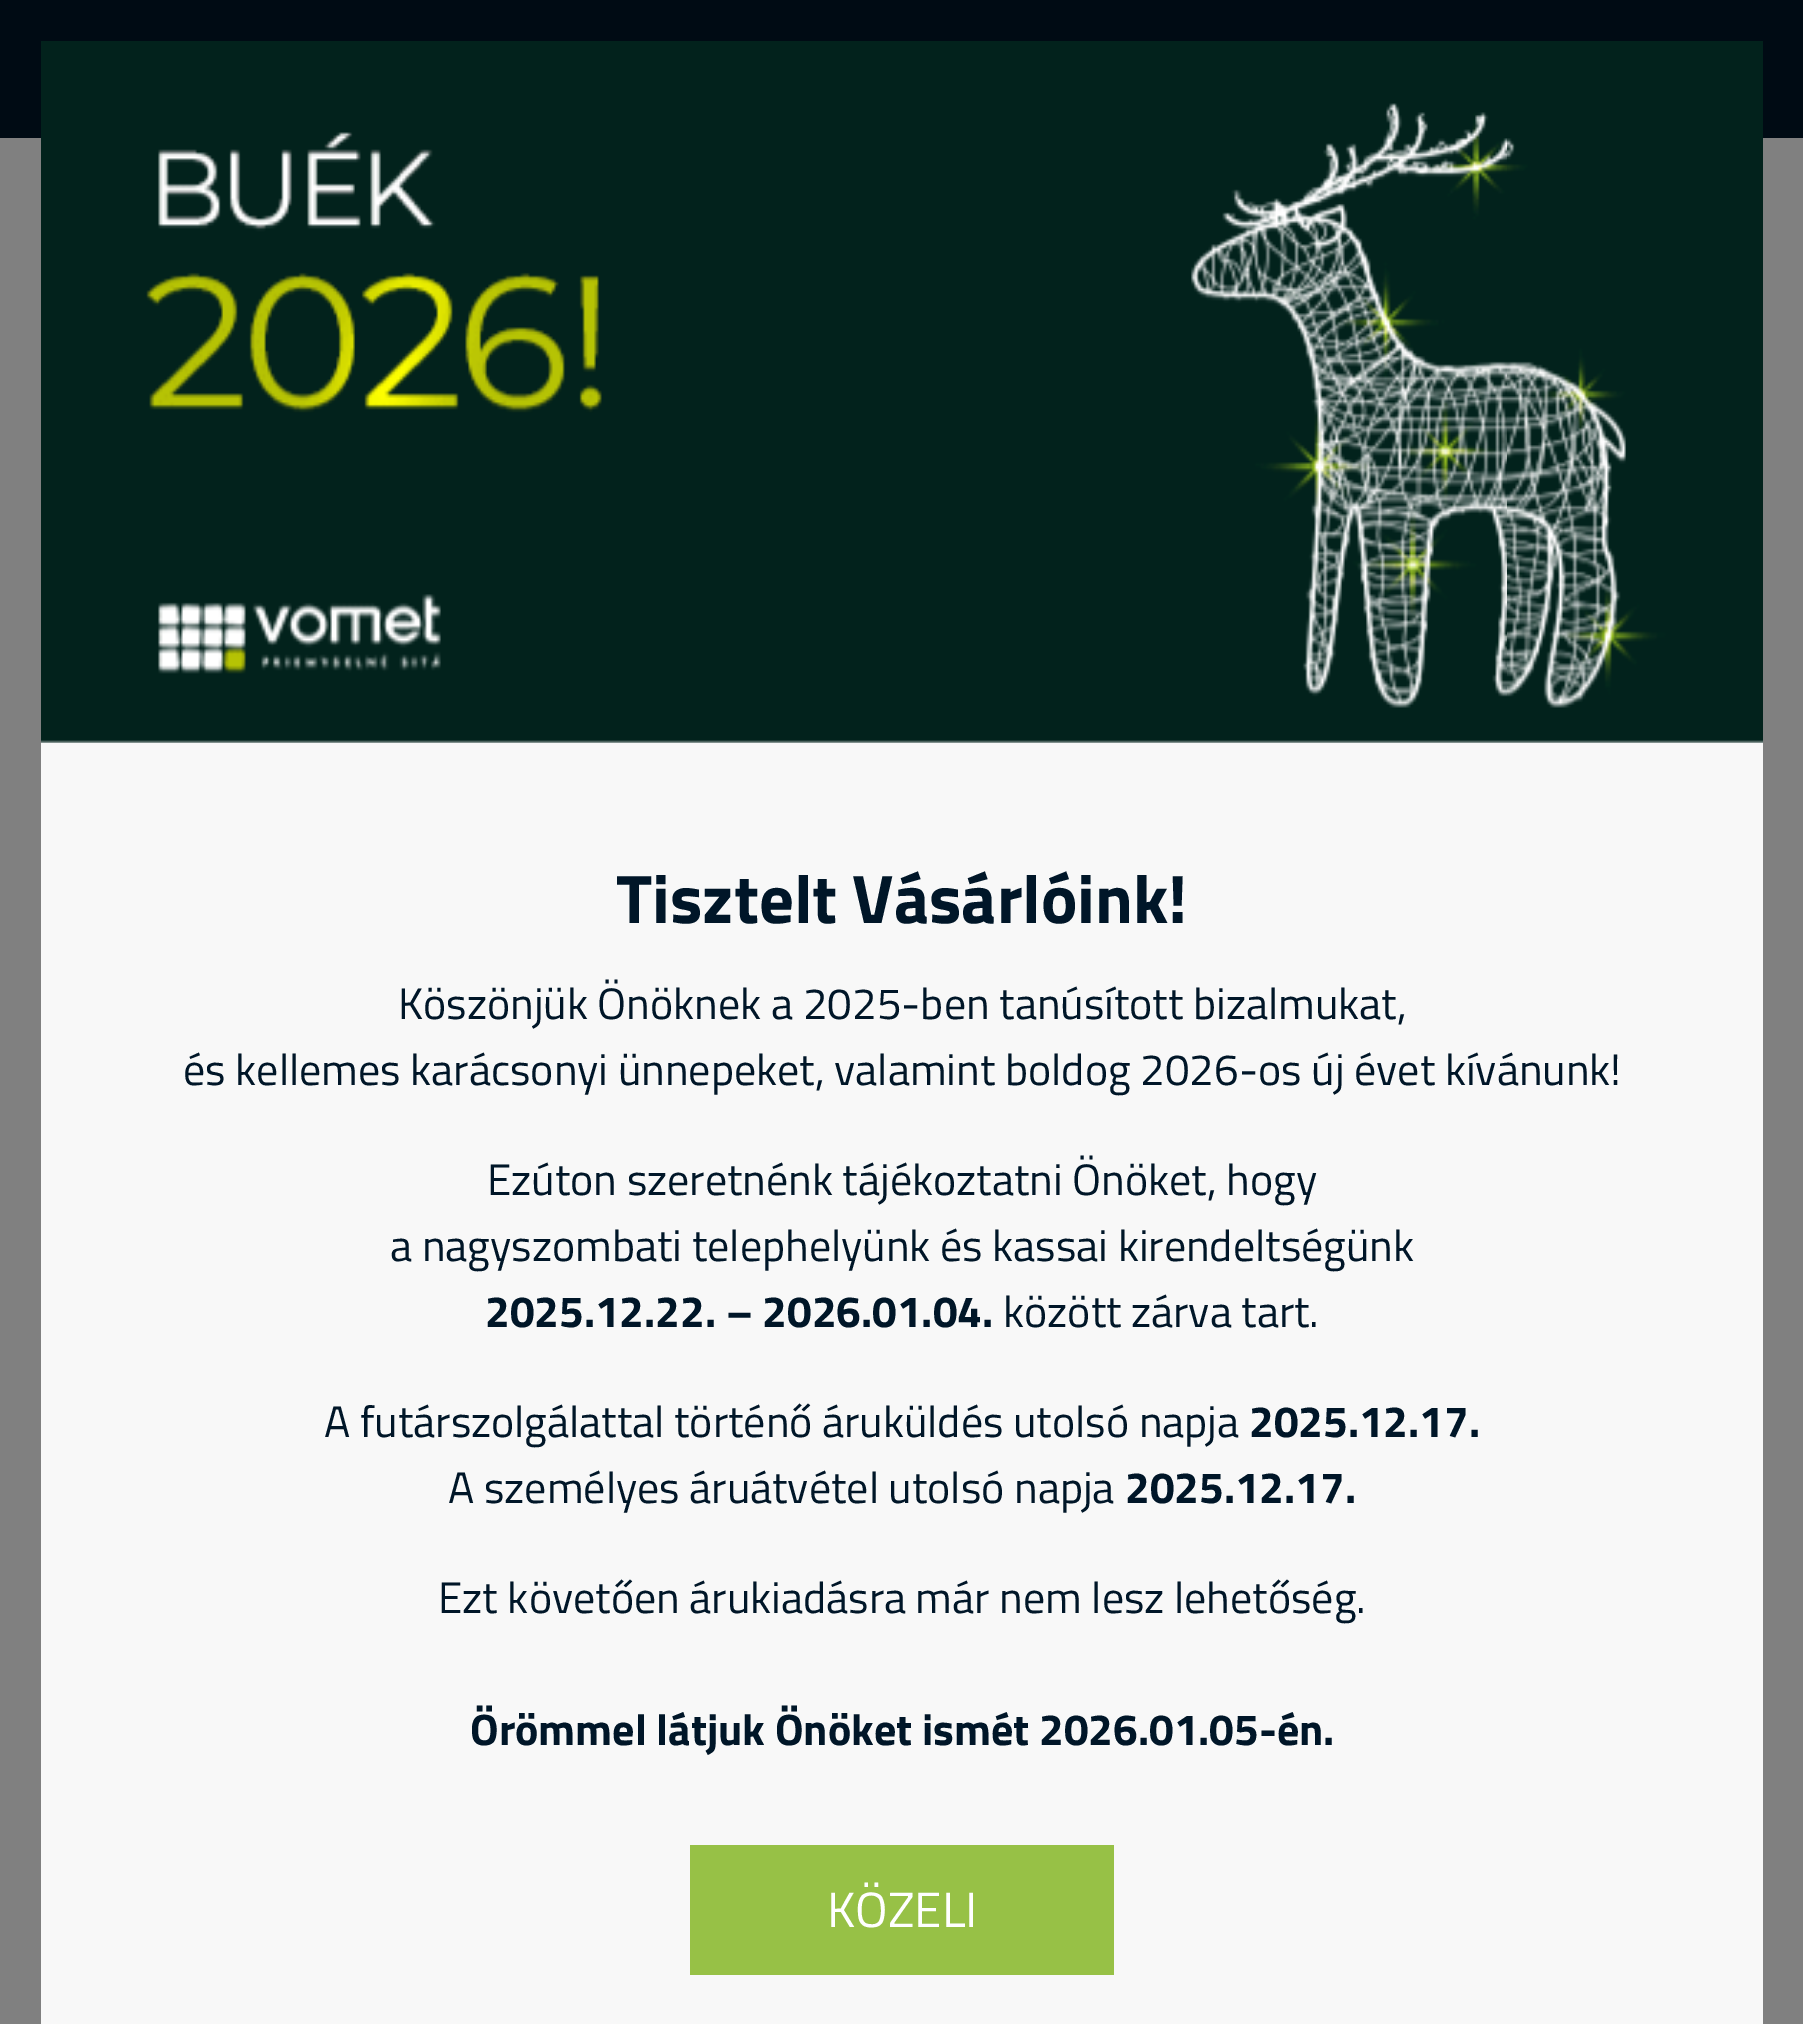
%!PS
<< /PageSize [1803 2024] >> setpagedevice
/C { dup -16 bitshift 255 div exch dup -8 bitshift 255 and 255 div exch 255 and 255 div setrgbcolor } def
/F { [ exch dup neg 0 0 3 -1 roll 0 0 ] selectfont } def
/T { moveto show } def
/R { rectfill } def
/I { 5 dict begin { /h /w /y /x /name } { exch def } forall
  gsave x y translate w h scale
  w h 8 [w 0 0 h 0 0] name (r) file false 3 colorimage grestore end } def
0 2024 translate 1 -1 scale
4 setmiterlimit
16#808080 C
0 0 1803 2024 R
16#000B14 C
0 0 1803 138 R
16#F8F8F8 C
41 740 1722 1284 R
(1.rgb) 41 41 1722 702 I
/TitilliumWeb-Bold 68.75 F
16#001628 C
(Tisztelt Vásárlóink!) 616 923 T
/TitilliumWeb-Regular 44 F
(Köszönjük Önöknek a 2025-ben tanúsított bizalmukat,) 398 1019 T
(és kellemes karácsonyi ünnepeket, valamint boldog 2026-os új évet kívánunk!) 183 1085 T
(Ezúton szeretnénk tájékoztatni Önöket, hogy) 487 1195 T
(a nagyszombati telephelyünk és kassai kirendeltségünk) 390 1261 T
/TitilliumWeb-Bold 44 F
(2025.12.22. – 2026.01.04.) 485 1327 T
/TitilliumWeb-Regular 44 F
(között zárva tart.) 1003 1327 T
(A futárszolgálattal történő áruküldés utolsó napja) 324 1437 T
/TitilliumWeb-Bold 44 F
(2025.12.17.) 1249 1437 T
/TitilliumWeb-Regular 44 F
(A személyes áruátvétel utolsó napja) 448 1503 T
/TitilliumWeb-Bold 44 F
(2025.12.17.) 1125 1503 T
/TitilliumWeb-Regular 44 F
(Ezt követően árukiadásra már nem lesz lehetőség.) 438 1613 T
/TitilliumWeb-Bold 44 F
(Örömmel látjuk Önöket ismét 2026.01.05-én.) 470 1745 T
16#97C146 C
690 1845 424 130 R
/TitilliumWeb-Regular 49.5 F
16#FFFFFF C
(KÖZELI) 827 1927 T
showpage
